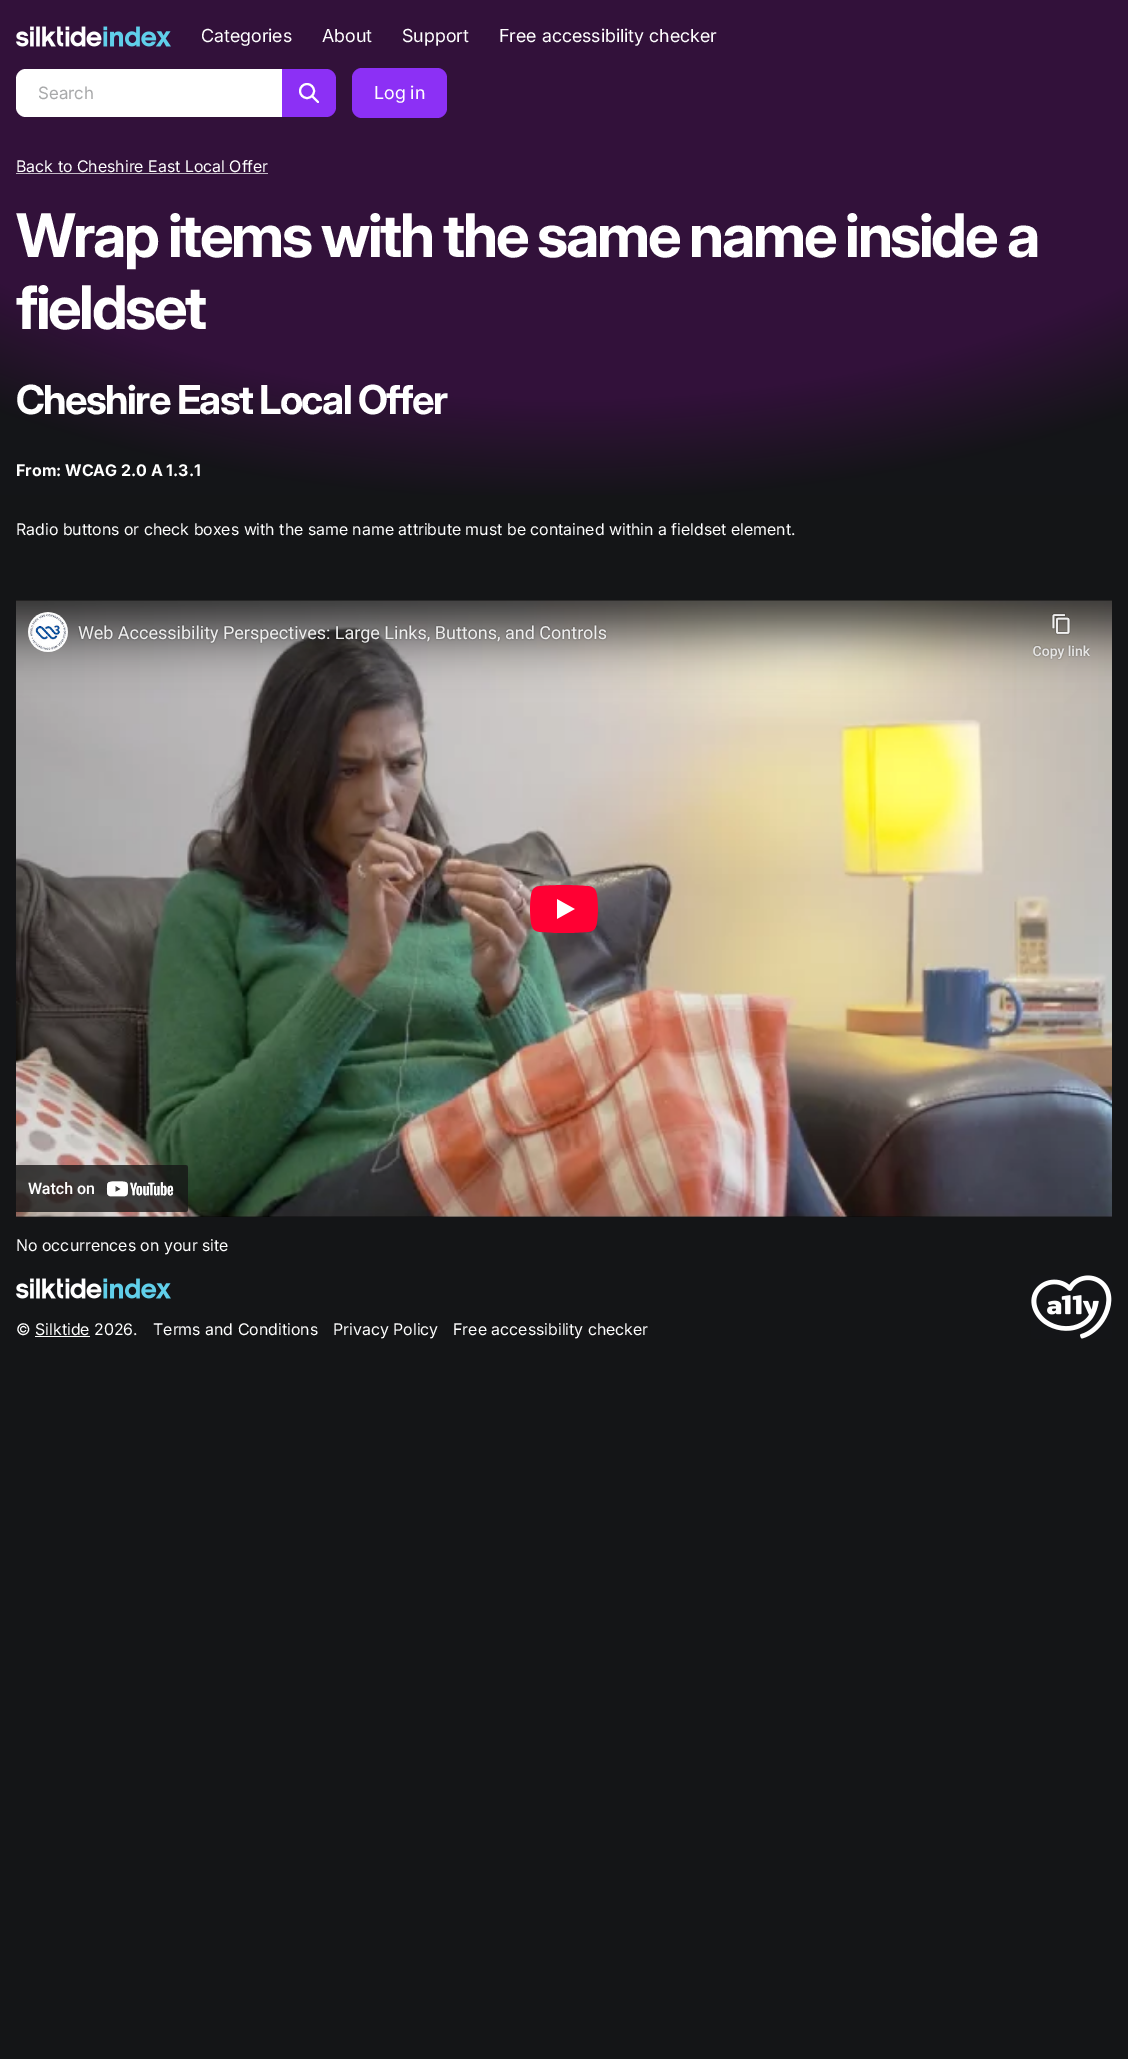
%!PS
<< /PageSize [1128 2059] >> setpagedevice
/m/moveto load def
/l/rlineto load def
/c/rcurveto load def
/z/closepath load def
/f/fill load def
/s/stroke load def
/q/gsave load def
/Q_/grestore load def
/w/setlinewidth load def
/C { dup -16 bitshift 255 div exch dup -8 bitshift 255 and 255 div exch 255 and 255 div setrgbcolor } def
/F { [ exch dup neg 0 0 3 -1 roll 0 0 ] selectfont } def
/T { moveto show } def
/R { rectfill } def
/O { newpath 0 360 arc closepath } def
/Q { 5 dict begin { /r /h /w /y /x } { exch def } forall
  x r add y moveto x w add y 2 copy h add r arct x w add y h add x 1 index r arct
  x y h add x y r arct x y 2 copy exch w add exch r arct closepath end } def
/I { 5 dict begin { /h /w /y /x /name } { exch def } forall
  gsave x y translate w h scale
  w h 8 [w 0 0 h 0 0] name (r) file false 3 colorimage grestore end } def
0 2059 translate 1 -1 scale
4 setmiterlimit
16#141517 C
0 0 1128 2059 R
q 0 0 m 1128 0 l 0 495 l -1128 0 l z clip newpath 564 0 translate 1000 500 scale
<< /ShadingType 3 /ColorSpace /DeviceRGB /Coords [0 0 0 0 0 1] /Extend [true true] /Function << /FunctionType 3 /Domain [0 1] /Functions [<< /FunctionType 2 /Domain [0 1] /C0 [.196 .067 .227] /C1 [.196 .067 .227] /N 1 >> << /FunctionType 2 /Domain [0 1] /C0 [.196 .067 .227] /C1 [.078 .082 .094] /N 1 >>] /Bounds [.8] /Encode [0 1 0 1] >> >> shfill Q_
(1.rgb) 16 26 155 21 I
/Inter-Regular 18 F
16#FFFFFF C
(Categories) 201 42 T
(About) 322 42 T
(Support) 402 42 T
(Free accessibility checker) 499 42 T
26 69 m 256 0 l 0 48 l -256 0 l -5.5 0 -10 -4.5 -10 -10 c 0 -28 l 0 -5.5 4.5 -10 10 -10 c z f
/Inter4-Regular 17 F
16#A8A9AA C
(Search) 38 99 T
16#8C30F5 C
282 69 m 44 0 l 5.5 0 10 4.5 10 10 c 0 28 l 0 5.5 -4.5 10 -10 10 c -44 0 l z f
16#FFFFFF C
2 w
307 91 7 O s
1 setlinecap
1 setlinejoin
318 102 m -6 -6 l s
16#8C30F5 C
352 68 95 50 10 Q f
/Inter-Regular 18 F
16#FFFFFF C
(Log in) 374 99 T
/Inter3-Regular 16 F
(Back to Cheshire East Local Offer) 16 172 T
16#C2B8C4 C
16 173 252 1 R
/Inter-Bold 60 F
16#FFFFFF C
16 257 m -2.4 0 (Wrap items with the same name inside a) ashow
16 329 m -2.4 0 (fieldset) ashow
/Inter-Bold 40 F
16 414 m -1.6 0 (Cheshire East Local Offer) ashow
/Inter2-Bold 16 F
(From: WCAG 2.0 A 1.3.1) 16 476 T
/Inter3-Regular 16 F
(Radio buttons or check boxes with the same name attribute must be contained within a fieldset element.) 16 535 T
(2.rgb) 16 600 1096 617 I
(No occurrences on your site) 16 1251 T
(3.rgb) 16 1278 155 21 I
(4.rgb) 1031 1275 81 64 I
/Inter2-Regular 16 F
(©) 16 1335 T
/Inter3-Regular 16 F
(Silktide 2026.) 35 1335 T
35 1336 55 1 R
(Terms and Conditions) 153 1335 T
(Privacy Policy) 333 1335 T
(Free accessibility checker) 453 1335 T
showpage
